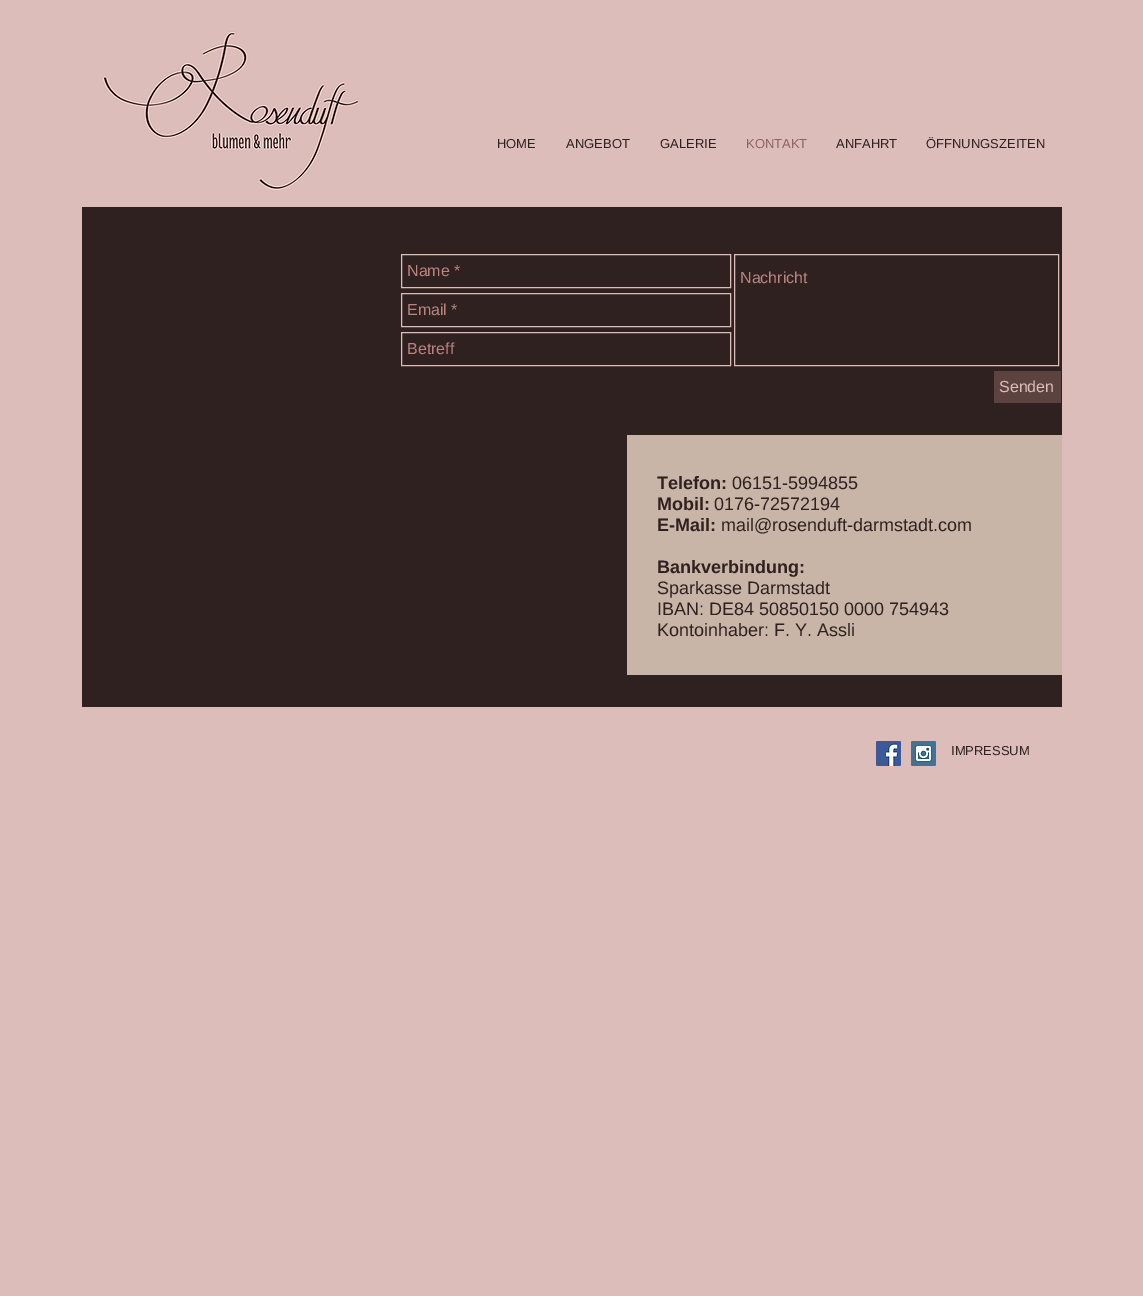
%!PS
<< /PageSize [1143 1296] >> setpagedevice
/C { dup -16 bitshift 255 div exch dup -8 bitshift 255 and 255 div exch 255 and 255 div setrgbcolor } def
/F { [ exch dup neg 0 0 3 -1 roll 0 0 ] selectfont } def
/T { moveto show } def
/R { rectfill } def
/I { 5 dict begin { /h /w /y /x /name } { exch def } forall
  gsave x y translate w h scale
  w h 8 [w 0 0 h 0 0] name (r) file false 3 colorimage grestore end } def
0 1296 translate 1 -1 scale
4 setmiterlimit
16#DDBDBA C
0 0 1143 1296 R
(1.rgb) 103 31 256 159 I
/LiberationSans-Regular 13 F
16#2F2120 C
(HOME) 497 148 T
(ANGEBOT) 566 148 T
(GALERIE) 660 148 T
16#8C6460 C
(KONTAKT) 746 148 T
16#2F2120 C
(ANFAHRT) 836 148 T
(ÖFFNUNGSZEITEN) 926 148 T
82 207 980 500 R
16#DDBDBA C
401.5 254.5 329 33 rectstroke
/LiberationSans-Regular 16 F
16#BA8580 C
(Name *) 407 276 T
16#DDBDBA C
734.5 254.5 324 111 rectstroke
16#BA8580 C
(Nachricht) 740 283 T
16#DDBDBA C
401.5 293.5 329 33 rectstroke
16#BA8580 C
(Email *) 407 315 T
16#DDBDBA C
401.5 332.5 329 33 rectstroke
16#BA8580 C
(Betreff) 407 354 T
16#5D4340 C
994 371 67 32 R
16#DDBDBA C
(Senden) 999 392 T
16#C9B5A7 C
627 435 435 240 R
/LiberationSans-Bold 18 F
16#2F2120 C
(Telefon:) 657 489 T
/LiberationSans-Regular 18 F
(06151-5994855) 732 489 T
/LiberationSans-Bold 18 F
(Mobil:) 657 510 T
/LiberationSans-Regular 18 F
(0176-72572194) 714 510 T
/LiberationSans-Bold 18 F
(E-Mail:) 657 531 T
/LiberationSans-Regular 18 F
(mail@rosenduft-darmstadt.com) 721 531 T
/LiberationSans-Bold 18 F
(Bankverbindung:) 657 573 T
/LiberationSans-Regular 18 F
(Sparkasse Darmstadt) 657 594 T
(IBAN: DE84 50850150 0000 754943) 657 615 T
(Kontoinhaber: F. Y. Assli) 657 636 T
(2.rgb) 876 741 25 25 I
(3.rgb) 911 741 25 25 I
/LiberationSans-Regular 13 F
(IMPRESSUM) 951 755 T
showpage
